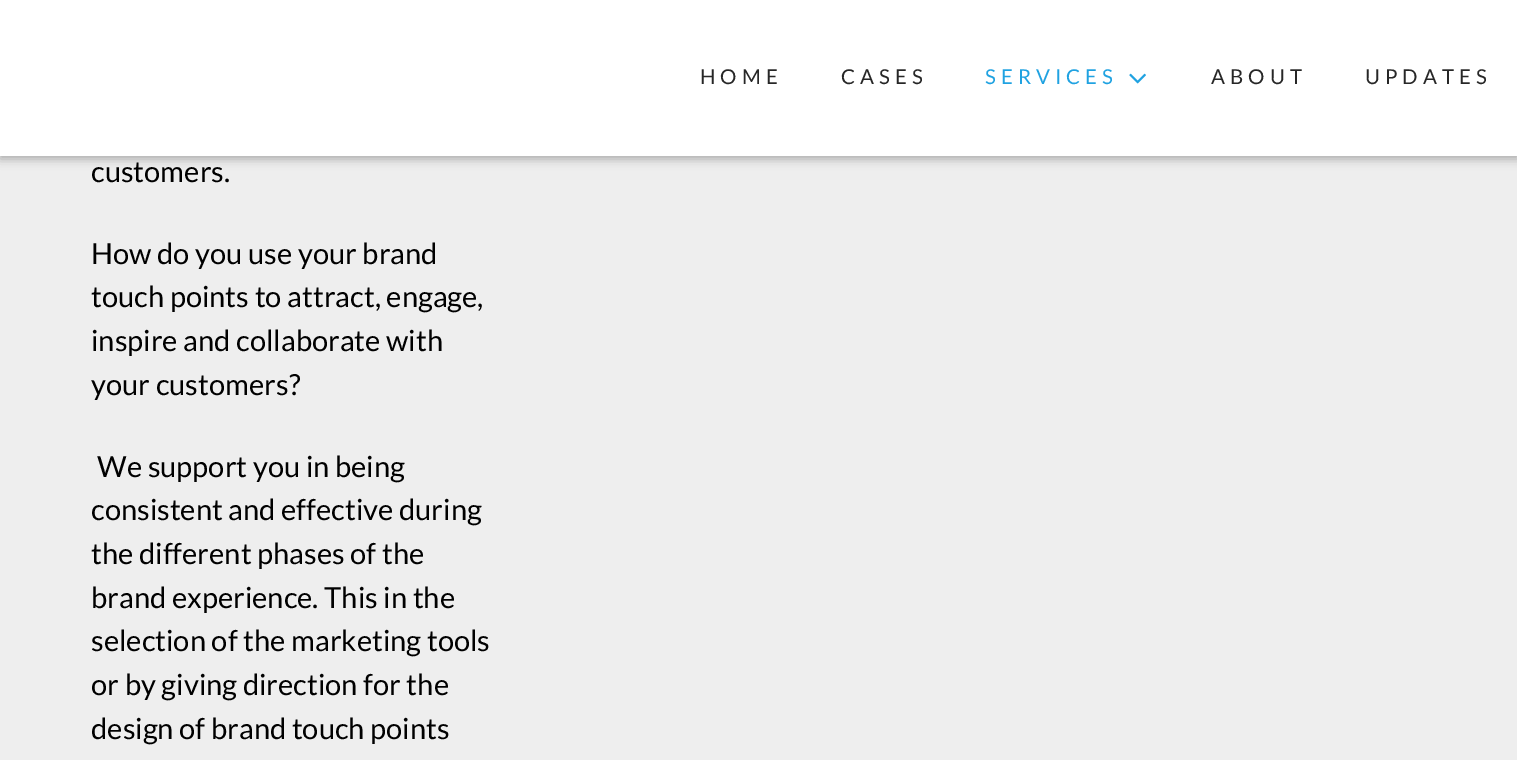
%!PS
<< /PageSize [1517 760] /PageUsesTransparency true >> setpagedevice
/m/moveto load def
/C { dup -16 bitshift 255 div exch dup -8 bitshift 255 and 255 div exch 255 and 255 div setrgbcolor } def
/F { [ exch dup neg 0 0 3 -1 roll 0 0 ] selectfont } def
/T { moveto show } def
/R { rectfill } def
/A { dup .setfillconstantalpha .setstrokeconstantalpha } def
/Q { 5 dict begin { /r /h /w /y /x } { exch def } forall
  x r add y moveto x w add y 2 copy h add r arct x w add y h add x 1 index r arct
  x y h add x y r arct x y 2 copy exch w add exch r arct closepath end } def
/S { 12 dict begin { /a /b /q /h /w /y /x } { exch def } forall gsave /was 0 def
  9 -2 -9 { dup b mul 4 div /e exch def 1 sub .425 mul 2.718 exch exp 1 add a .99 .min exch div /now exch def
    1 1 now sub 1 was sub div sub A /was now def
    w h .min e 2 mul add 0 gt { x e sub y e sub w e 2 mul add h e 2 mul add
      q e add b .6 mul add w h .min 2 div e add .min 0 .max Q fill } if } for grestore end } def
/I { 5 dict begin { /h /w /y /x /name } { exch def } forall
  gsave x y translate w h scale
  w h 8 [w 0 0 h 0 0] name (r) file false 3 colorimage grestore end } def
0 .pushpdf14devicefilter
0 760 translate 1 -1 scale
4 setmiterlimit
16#EEEEEE C
0 0 1517 760 R
16#000000 C
0 3 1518 156 0 5 .3 S
16#FFFFFF C
0 0 1517 156 R
/Lato-Regular 20.5 F
16#272727 C
700 84 m 5 0 (HOME) ashow
841 84 m 5 0 (CASES) ashow
16#20A2E1 C
985 84 m 5 0 (SERVICES) ashow
(1.rgb) 1129 73 17 11 I
16#272727 C
1211 84 m 5 0 (ABOUT) ashow
1365 84 m 5 0 (UPDATES) ashow
/Lato-Regular 29.1 F
16#000000 C
(customers.) 91 182 T
(How do you use your brand) 91 264 T
(touch points to attract, engage,) 91 307 T
(inspire and collaborate with) 91 351 T
(your customers?) 91 395 T
(We support you in being) 97 477 T
(consistent and effective during) 91 520 T
(the different phases of the) 91 564 T
(brand experience. This in the) 91 608 T
(selection of the marketing tools) 91 651 T
(or by giving direction for the) 91 695 T
(design of brand touch points) 91 739 T
.poppdf14devicefilter showpage
